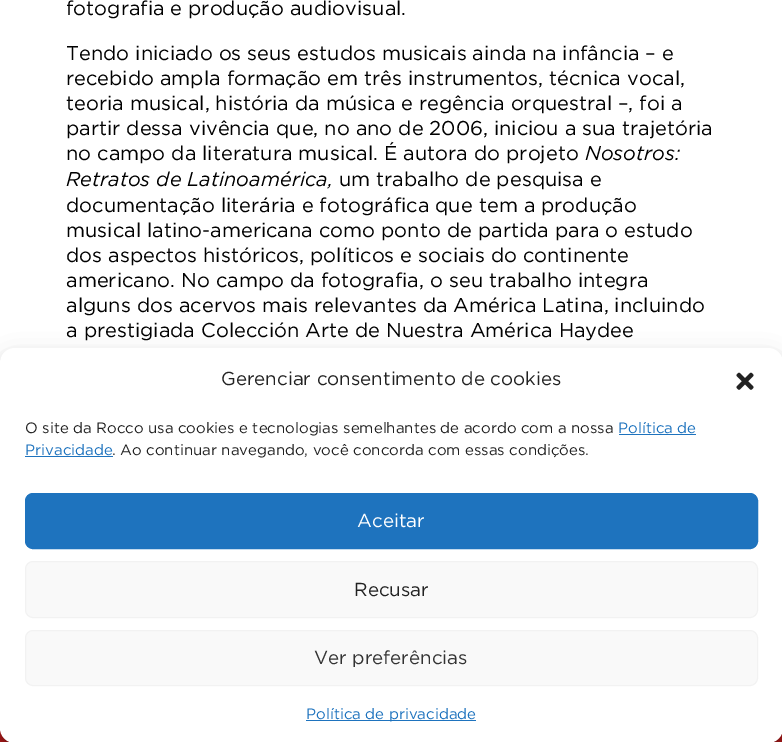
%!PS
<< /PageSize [782 742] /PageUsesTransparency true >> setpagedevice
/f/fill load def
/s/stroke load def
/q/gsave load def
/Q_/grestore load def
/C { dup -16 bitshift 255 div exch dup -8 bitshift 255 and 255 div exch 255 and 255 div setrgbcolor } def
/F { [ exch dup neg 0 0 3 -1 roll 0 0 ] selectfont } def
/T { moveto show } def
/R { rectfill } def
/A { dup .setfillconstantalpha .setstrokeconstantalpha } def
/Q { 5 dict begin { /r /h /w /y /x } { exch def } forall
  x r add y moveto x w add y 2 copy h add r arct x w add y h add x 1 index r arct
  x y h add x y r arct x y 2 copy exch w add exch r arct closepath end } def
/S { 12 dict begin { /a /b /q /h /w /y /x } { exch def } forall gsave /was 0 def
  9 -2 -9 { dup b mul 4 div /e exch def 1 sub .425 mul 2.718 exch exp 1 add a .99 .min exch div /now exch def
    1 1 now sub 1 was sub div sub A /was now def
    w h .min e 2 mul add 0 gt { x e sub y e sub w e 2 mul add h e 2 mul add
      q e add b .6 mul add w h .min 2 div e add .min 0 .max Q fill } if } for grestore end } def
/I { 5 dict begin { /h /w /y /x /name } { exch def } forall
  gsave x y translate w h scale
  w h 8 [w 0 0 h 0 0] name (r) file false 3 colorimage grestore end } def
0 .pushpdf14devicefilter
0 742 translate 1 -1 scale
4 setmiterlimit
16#FFFFFF C
0 0 782 742 R
/Gotham-Regular 20 F
16#000000 C
(fotografia e produção audiovisual.) 66 15 T
(Tendo iniciado os seus estudos musicais ainda na infância – e) 66 60 T
(recebido ampla formação em três instrumentos, técnica vocal,) 66 85 T
(teoria musical, história da música e regência orquestral –, foi a) 66 110 T
(partir dessa vivência que, no ano de 2006, iniciou a sua trajetória) 66 135 T
(no campo da literatura musical. É autora do projeto) 66 160 T
/Gotham-Italic 20 F
(Nosotros:) 585 160 T
(Retratos de Latinoamérica,) 66 186 T
/Gotham-Regular 20 F
(um trabalho de pesquisa e) 339 186 T
(documentação literária e fotográfica que tem a produção) 66 212 T
(musical latino-americana como ponto de partida para o estudo) 66 237 T
(dos aspectos históricos, políticos e sociais do continente) 66 262 T
(americano. No campo da fotografia, o seu trabalho integra) 66 287 T
(alguns dos acervos mais relevantes da América Latina, incluindo) 66 312 T
(a prestigiada Colección Arte de Nuestra América Haydee) 66 337 T
16#B5191A C
0 728 782 14 R
16#000000 C
0 355 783 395 15 4 .23 S
0 360 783 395 15 12.5 .19 S
16#FFFFFF C
0 348 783 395 15 Q f
/Gotham-Regular 18.75 F
16#222222 C
(Gerenciar consentimento de cookies) 221 385 T
(1.rgb) 736 372 18 18 I
/Gotham-Regular 15 F
(O site da Rocco usa cookies e tecnologias semelhantes de acordo com a nossa) 25 433 T
16#1E73BE C
(Política de) 618 433 T
619 434 77 1 R
(Privacidade) 25 455 T
25 456 88 1 R
16#222222 C
(. Ao continuar navegando, você concorda com essas condições.) 112 455 T
16#1E73BE C
25.5 493.5 732 55 7.5 Q q f Q_
s
/Gotham-Regular 18.75 F
16#FFFFFF C
(Aceitar) 357 527 T
16#F9F9F9 C
25.5 561.5 732 56 7.5 Q q f Q_
16#F2F2F2 C
s
16#222222 C
(Recusar) 354 596 T
16#F9F9F9 C
25.5 630.5 732 55 7.5 Q q f Q_
16#F2F2F2 C
s
16#333333 C
(Ver preferências) 314 664 T
16#1E73BE C
306 720 170 1 R
/Gotham-Regular 15 F
(Política de privacidade) 306 719 T
.poppdf14devicefilter showpage
